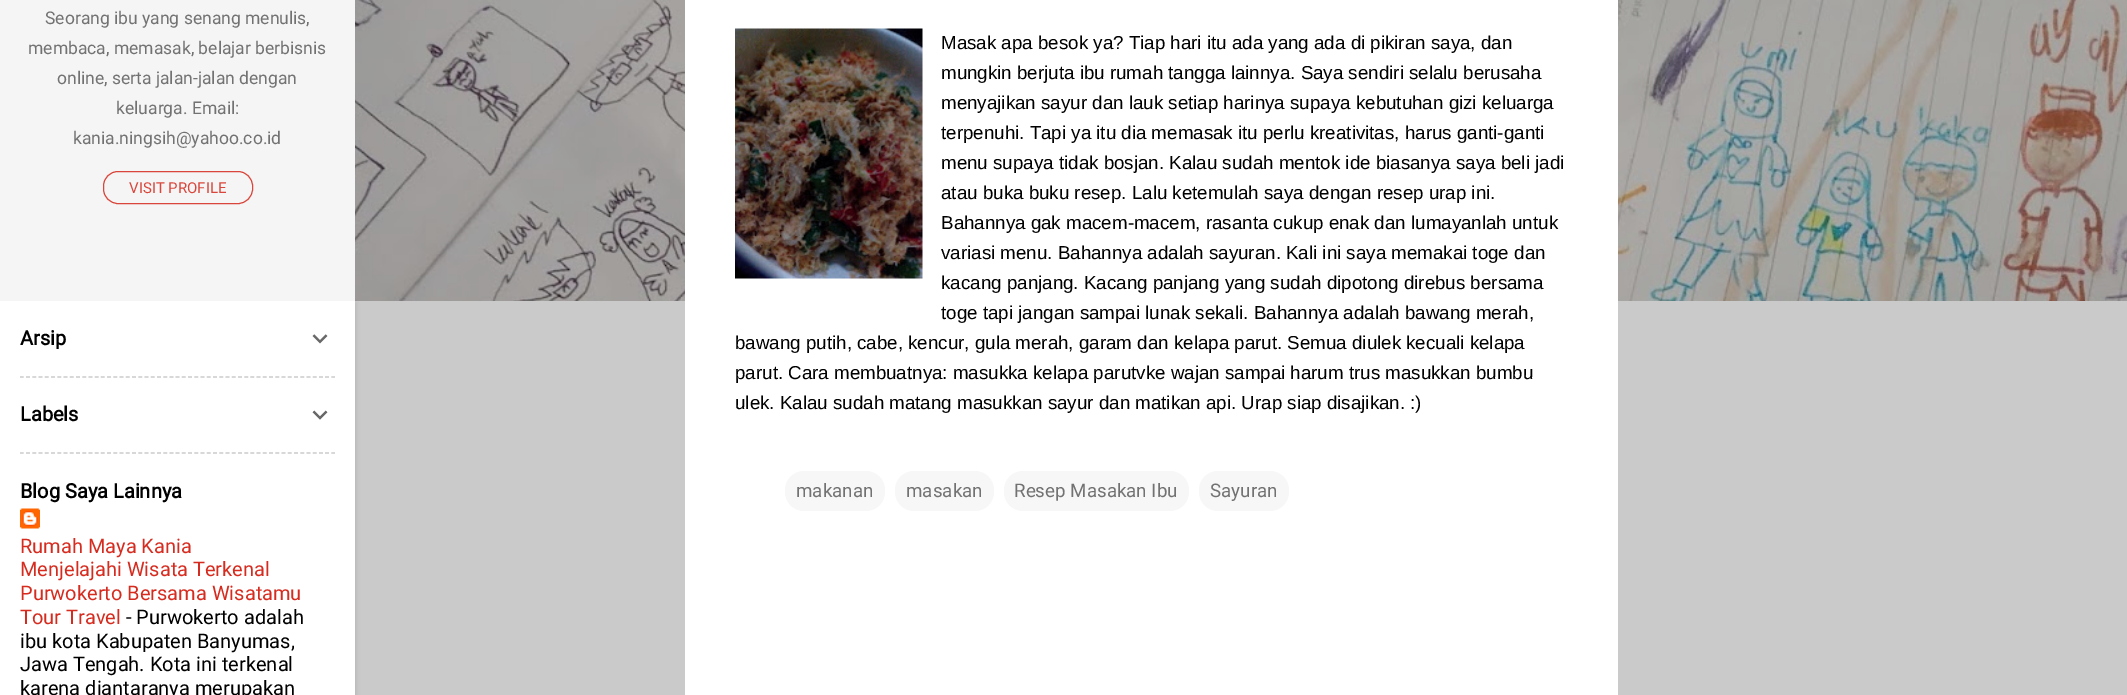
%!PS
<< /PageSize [2127 695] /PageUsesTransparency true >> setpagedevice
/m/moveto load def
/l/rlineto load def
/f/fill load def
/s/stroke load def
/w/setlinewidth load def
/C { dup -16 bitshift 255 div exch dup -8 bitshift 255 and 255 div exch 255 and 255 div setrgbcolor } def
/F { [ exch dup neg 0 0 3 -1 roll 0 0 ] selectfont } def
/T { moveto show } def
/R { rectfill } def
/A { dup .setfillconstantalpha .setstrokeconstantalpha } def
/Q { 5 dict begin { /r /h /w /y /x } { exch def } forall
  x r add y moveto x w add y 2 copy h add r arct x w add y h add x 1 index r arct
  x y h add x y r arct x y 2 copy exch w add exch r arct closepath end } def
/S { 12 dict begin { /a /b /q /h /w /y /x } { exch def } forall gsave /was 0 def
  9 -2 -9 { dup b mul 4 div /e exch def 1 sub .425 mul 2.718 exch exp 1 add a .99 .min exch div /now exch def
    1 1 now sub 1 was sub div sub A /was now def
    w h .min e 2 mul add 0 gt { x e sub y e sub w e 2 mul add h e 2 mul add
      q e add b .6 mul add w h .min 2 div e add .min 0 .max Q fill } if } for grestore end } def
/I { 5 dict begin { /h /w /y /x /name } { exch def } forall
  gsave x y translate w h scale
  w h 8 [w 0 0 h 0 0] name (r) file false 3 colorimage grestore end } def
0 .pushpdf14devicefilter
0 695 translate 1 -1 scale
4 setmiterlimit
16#CACACA C
0 0 2127 695 R
(4.rgb) 355 0 1772 301 I
16#000000 C
1 303 355 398 0 2 .1 S
16#FFFFFF C
0 301 355 394 R
16#F5F5F5 C
0 0 355 301 R
/Roboto-Regular 17.5 F
16#727272 C
(Seorang ibu yang senang menulis,) 45 24 T
(membaca, memasak, belajar berbisnis) 28 54 T
(online, serta jalan-jalan dengan) 57 84 T
(keluarga. Email:) 116 114 T
(kania.ningsih@yahoo.co.id) 73 144 T
16#D9463B C
103.5 171.5 149 32 14.5 Q s
/Roboto-Regular 15 F
(VISIT PROFILE) 129 193 T
/Roboto-Bold 20 F
16#000000 C
(Arsip) 20 345 T
(1.rgb) 312 334 16 10 I
16#CACACA C
1.2 w
[3.75 2.48] 0 setdash
20 377 m 315 0 l s
16#000000 C
(Labels) 20 421 T
(2.rgb) 312 410 16 10 I
16#CACACA C
20 453 m 315 0 l s
16#000000 C
(Blog Saya Lainnya) 20 498 T
(3.rgb) 20 508 20 21 I
/Roboto-Regular 20 F
16#D52C1F C
(Rumah Maya Kania) 20 553 T
(Menjelajahi Wisata Terkenal) 20 576 T
(Purwokerto Bersama Wisatamu) 20 600 T
(Tour Travel) 20 624 T
16#000000 C
(- Purwokerto adalah) 126 624 T
(ibu kota Kabupaten Banyumas,) 20 648 T
(Jawa Tengah. Kota ini terkenal) 20 671 T
(karena diantaranya merupakan) 20 695 T
16#FFFFFF C
685 0 933 695 R
(5.rgb) 735 28 188 251 I
/LiberationSans-Regular 18.75 F
16#000000 C
(Masak apa besok ya? Tiap hari itu ada yang ada di pikiran saya, dan) 941 49 T
(mungkin berjuta ibu rumah tangga lainnya. Saya sendiri selalu berusaha) 941 79 T
(menyajikan sayur dan lauk setiap harinya supaya kebutuhan gizi keluarga) 941 109 T
(terpenuhi. Tapi ya itu dia memasak itu perlu kreativitas, harus ganti-ganti) 941 139 T
(menu supaya tidak bosjan. Kalau sudah mentok ide biasanya saya beli jadi) 941 169 T
(atau buka buku resep. Lalu ketemulah saya dengan resep urap ini.) 941 199 T
(Bahannya gak macem-macem, rasanta cukup enak dan lumayanlah untuk) 941 229 T
(variasi menu. Bahannya adalah sayuran. Kali ini saya memakai toge dan) 941 259 T
(kacang panjang. Kacang panjang yang sudah dipotong direbus bersama) 941 289 T
(toge tapi jangan sampai lunak sekali. Bahannya adalah bawang merah,) 941 319 T
(bawang putih, cabe, kencur, gula merah, garam dan kelapa parut. Semua diulek kecuali kelapa) 735 349 T
(parut. Cara membuatnya: masukka kelapa parutvke wajan sampai harum trus masukkan bumbu) 735 379 T
(ulek. Kalau sudah matang masukkan sayur dan matikan api. Urap siap disajikan. :\)) 735 409 T
16#F7F7F7 C
785 471 100 40 19 Q f
/Roboto-Regular 18.75 F
16#727272 C
(makanan) 796 497 T
16#F7F7F7 C
895 471 99 40 19 Q f
16#727272 C
(masakan) 906 497 T
16#F7F7F7 C
1004 471 185 40 19 Q f
16#727272 C
(Resep Masakan Ibu) 1014 497 T
16#F7F7F7 C
1199 471 90 40 19 Q f
16#727272 C
(Sayuran) 1210 497 T
.poppdf14devicefilter showpage
